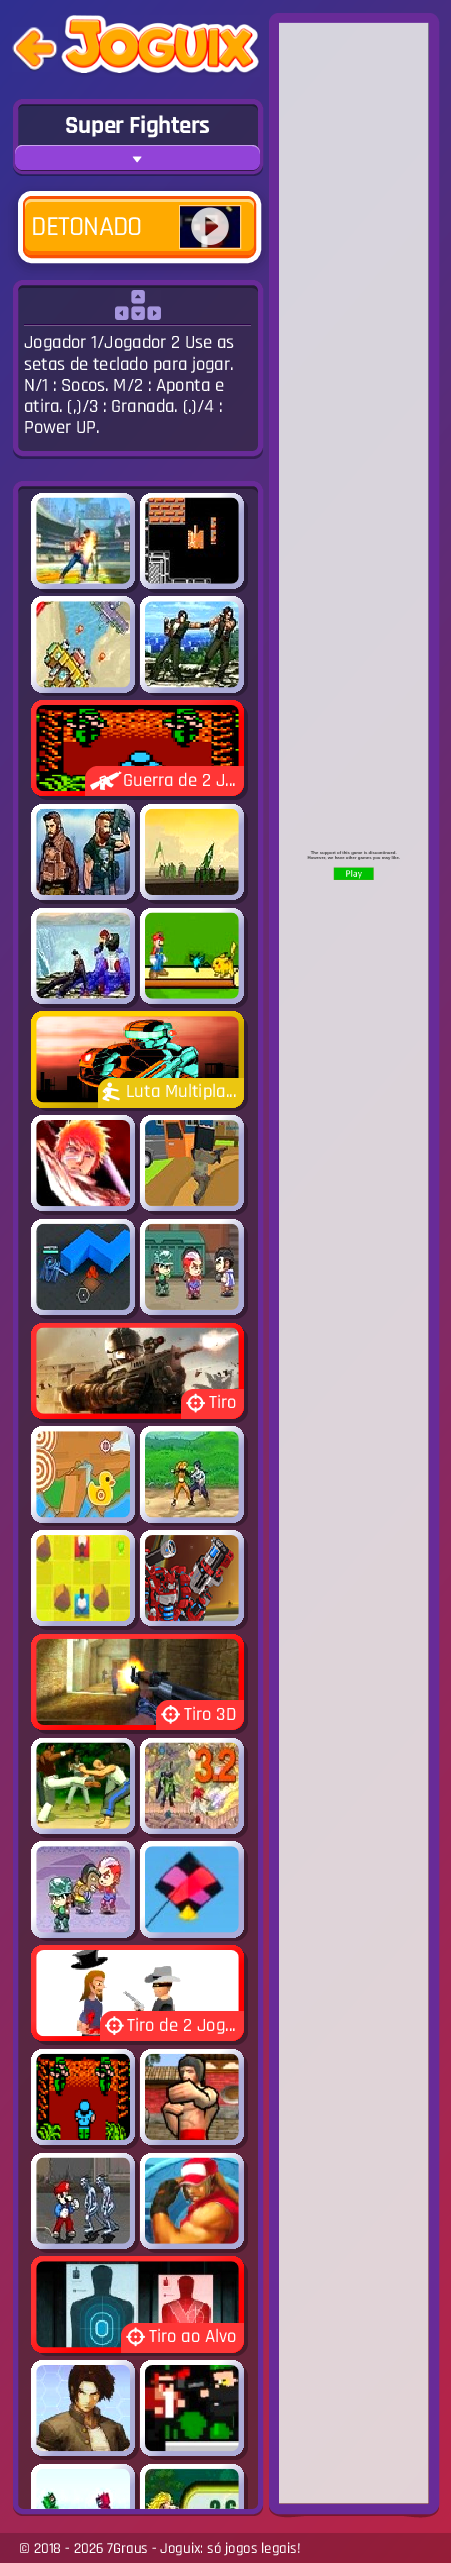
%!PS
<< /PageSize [451 2563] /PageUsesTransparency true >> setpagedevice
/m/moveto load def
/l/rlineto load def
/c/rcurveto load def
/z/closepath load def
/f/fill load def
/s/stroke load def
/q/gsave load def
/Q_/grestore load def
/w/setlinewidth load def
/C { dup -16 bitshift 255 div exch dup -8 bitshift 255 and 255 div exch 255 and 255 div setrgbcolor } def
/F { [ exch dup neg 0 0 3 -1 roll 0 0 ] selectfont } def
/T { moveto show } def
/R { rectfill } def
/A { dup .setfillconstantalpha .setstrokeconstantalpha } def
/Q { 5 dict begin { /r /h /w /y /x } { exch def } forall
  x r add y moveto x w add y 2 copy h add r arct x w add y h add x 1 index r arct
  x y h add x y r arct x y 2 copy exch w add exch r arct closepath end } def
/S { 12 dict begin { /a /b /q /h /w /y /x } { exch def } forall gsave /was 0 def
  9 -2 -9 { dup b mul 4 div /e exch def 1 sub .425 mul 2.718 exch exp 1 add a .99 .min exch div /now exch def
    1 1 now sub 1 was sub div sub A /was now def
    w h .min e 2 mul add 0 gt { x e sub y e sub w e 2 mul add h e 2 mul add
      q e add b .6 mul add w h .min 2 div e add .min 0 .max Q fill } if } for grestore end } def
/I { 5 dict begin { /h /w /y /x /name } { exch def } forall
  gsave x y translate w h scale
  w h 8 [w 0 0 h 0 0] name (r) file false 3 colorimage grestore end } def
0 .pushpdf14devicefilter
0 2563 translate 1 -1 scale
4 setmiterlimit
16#FFFFFF C
0 0 451 2563 R
q 0 0 m 451 0 l 0 2533 l -451 0 l z clip newpath
<< /ShadingType 2 /ColorSpace /DeviceRGB /Coords [-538 641 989 1923] /Extend [true true] /Function << /FunctionType 2 /Domain [0 1] /C0 [.184 .188 .569] /C1 [.733 .141 .275] /N 1 >> >> shfill Q_
q 0 2533 m 451 0 l 0 30 l -451 0 l z clip newpath
<< /ShadingType 2 /ColorSpace /DeviceRGB /Coords [-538 641 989 1923] /Extend [true true] /Function << /FunctionType 2 /Domain [0 1] /C0 [.149 .149 .455] /C1 [.588 .114 .22] /N 1 >> >> shfill Q_
(1.rgb) 12 27 46 45 I
(2.rgb) 60 15 200 62 I
0.35 A
16#000000 C
13 167 m 1 5 5 9 10 9 c 230 0 l 6 0 10 -4 10 -10 c 0 -55 l -1 -3 l 0 56 l 0 5 -4 10 -10 10 c -230 0 l -4 0 -8 -3 -9 -7 c z f
0.5 A
16#262626 C
13 99 250 75 10 Q f
0.35 A
16#000000 C
22 106 m 230 0 l 3 0 6 2 6 5 c 0 -3 0 -6 -4 -7 c -232 0 l -4 1 -4 4 -4 7 c 0 -3 2 -5 4 -5 c z f
1 A
16#682B98 C
5 w
15.5 101.5 245 70 7.5 Q s
/Rajdhani-Bold 25 F
16#FFFFFF C
65 133 m -.4 0 (Super Fighters) ashow
16#34164C C
15 162 m 0 1 l 0 4 4 8 8 8 c 229 0 l 4 0 8 -4 8 -8 c 0 -1 l 0 5 -3 8 -8 8 c -230 0 l -4 0 -7 -3 -7 -8 c z f
16#9243D8 C
15 145 245 25 8 Q f
0.5 A
16#FFFFFF C
22 146 m 230 0 l 5 0 8 4 8 8 c 0 -5 -3 -9 -8 -9 c -231 0 l -4 1 -6 5 -6 9 c 0 -4 3 -8 7 -8 c z f
1 A
(3.rgb) 132 156 10 7 I
16#000000 C
15 193 249 76 16 6 .2 S
16#FFFFFF C
8 w
22 195 235 64 10 Q s
16#F85106 C
3 w
24.5 197.5 230 59 7.5 Q s
16#FFAA00 C
25 199 229 56 6 Q f
0.5 A
16#FFFFFF C
31 202 m 217 0 l 3 0 6 3 6 7 c 0 -4 l 0 -3 -3 -6 -6 -6 c -217 0 l -3 0 -6 3 -6 6 c 0 4 l 0 -4 3 -7 6 -7 c z f
1 A
16#FF7100 C
25 245 m 0 4 l 0 3 3 6 6 6 c 217 0 l 3 0 6 -3 6 -6 c 0 -4 l 0 3 -3 6 -6 6 c -217 0 l -3 0 -6 -3 -6 -6 c z f
/Rajdhani-Medium 27.5 F
16#FFFFFF C
31 235 m -.75 0 (DETONADO) ashow
16#CC5A00 C
179.5 205.5 m 61 0 l 0 43 l -61 0 l z q f Q_
16#FFD591 C
1 w
s
(4.rgb) 180 206 60 42 I
(5.rgb) 191 207 38 38 I
0.35 A
16#000000 C
13 449 m 0 6 5 10 10 10 c 230 0 l 6 0 10 -4 10 -10 c 0 -156 l -1 -3 l 0 156 l 0 6 -4 10 -10 10 c -230 0 l -4 0 -8 -3 -9 -7 c z f
0.5 A
16#262626 C
13 280 250 176 10 Q f
0.35 A
16#000000 C
22 288 m 230 0 l 3 0 6 2 6 4 c 0 -3 0 -6 -4 -7 c -232 0 l -4 1 -4 4 -4 7 c 0 -2 2 -4 4 -4 c z f
1 A
16#682B98 C
5 w
15.5 282.5 245 171 7.5 Q s
(6.rgb) 115 290 46 30 I
16#2B024A C
24 324 227 1 R
16#755B89 C
24 325 227 1 R
/Rajdhani-Medium 18.75 F
16#FFFFFF C
24 348 m -.1 0 (Jogador 1/Jogador 2 Use as) ashow
24 370 m -.1 0 (setas de teclado para jogar.) ashow
24 391 m -.1 0 (N/1 : Socos. M/2 : Aponta e) ashow
24 412 m -.1 0 (atira. \(,\)/3 : Granada. \(.\)/4 :) ashow
24 433 m -.1 0 (Power UP.) ashow
0.35 A
16#000000 C
13 2507 m 1 5 5 9 10 9 c 230 0 l 6 0 10 -4 10 -10 c 0 -2012 l -1 -3 l 0 2013 l 0 5 -4 10 -10 10 c -230 0 l -4 0 -8 -3 -9 -7 c z f
0.5 A
16#262626 C
13 481 250 2033 10 Q f
0.35 A
16#000000 C
22 489 m 230 0 l 3 0 6 2 6 5 c 0 -3 l 0 -3 -2 -5 -5 -5 c -230 0 l -3 0 -5 2 -5 5 c 0 3 l 0 -3 2 -5 4 -5 c z f
1 A
16#682B98 C
15.5 483.5 245 2028 7.5 Q s
16#291D3A C
37 587 m 2 3 6 6 11 6 c 78 0 l 7 0 13 -6 13 -13 c 0 -71 l 0 -5 -2 -9 -6 -11 c 1 2 2 4 2 7 c 0 71 l 0 7 -6 13 -13 13 c -78 0 l -3 0 -5 -1 -7 -2 c z f
q 31 493 104 96 13 Q clip newpath
<< /ShadingType 2 /ColorSpace /DeviceRGB /Coords [35 489 131 592] /Extend [true true] /Function << /FunctionType 3 /Domain [0 1] /Functions [<< /FunctionType 2 /Domain [0 1] /C0 [1 1 1] /C1 [1 1 1] /N 1 >> << /FunctionType 2 /Domain [0 1] /C0 [1 1 1] /C1 [.675 .675 .843] /N 1 >> << /FunctionType 2 /Domain [0 1] /C0 [.675 .675 .843] /C1 [.675 .675 .843] /N 1 >>] /Bounds [.4 .6] /Encode [0 1 0 1 0 1] >> >> shfill Q_
(7.rgb) 36 497 94 87 I
0.3 A
16#000000 C
146 587 m 2 4 6 6 11 6 c 78 0 l 7 0 13 -6 13 -13 c 0 -71 l 0 -5 -3 -9 -7 -11 c 2 2 3 4 3 7 c 0 71 l 0 7 -6 13 -13 13 c -79 0 l -2 0 -4 -1 -6 -2 c z f
1 A
q 140 493 104 96 13 Q clip newpath
<< /ShadingType 2 /ColorSpace /DeviceRGB /Coords [144 489 240 592] /Extend [true true] /Function << /FunctionType 3 /Domain [0 1] /Functions [<< /FunctionType 2 /Domain [0 1] /C0 [1 1 1] /C1 [1 1 1] /N 1 >> << /FunctionType 2 /Domain [0 1] /C0 [1 1 1] /C1 [.675 .675 .843] /N 1 >> << /FunctionType 2 /Domain [0 1] /C0 [.675 .675 .843] /C1 [.675 .675 .843] /N 1 >>] /Bounds [.4 .6] /Encode [0 1 0 1 0 1] >> >> shfill Q_
(8.rgb) 145 497 94 87 I
16#2A1D39 C
38 691 m 2 3 6 5 10 5 c 78 0 l 7 0 13 -6 13 -13 c 0 -70 l 0 -5 -2 -9 -6 -11 c 1 2 2 4 2 7 c 0 71 l 0 7 -6 12 -13 12 c -78 0 l -2 0 -4 0 -6 -1 c z f
q 31 596 104 97 13 Q clip newpath
<< /ShadingType 2 /ColorSpace /DeviceRGB /Coords [35 593 131 696] /Extend [true true] /Function << /FunctionType 3 /Domain [0 1] /Functions [<< /FunctionType 2 /Domain [0 1] /C0 [1 1 1] /C1 [1 1 1] /N 1 >> << /FunctionType 2 /Domain [0 1] /C0 [1 1 1] /C1 [.675 .675 .843] /N 1 >> << /FunctionType 2 /Domain [0 1] /C0 [.675 .675 .843] /C1 [.675 .675 .843] /N 1 >>] /Bounds [.4 .6] /Encode [0 1 0 1 0 1] >> >> shfill Q_
(9.rgb) 36 601 94 87 I
16#2D1D38 C
147 691 m 2 3 6 5 10 5 c 78 0 l 7 0 13 -6 13 -13 c 0 -70 l 0 -5 -3 -9 -6 -11 c 1 2 2 4 2 7 c 0 71 l 0 7 -6 12 -13 12 c -79 0 l -2 0 -3 0 -5 -1 c z f
q 140 596 104 97 13 Q clip newpath
<< /ShadingType 2 /ColorSpace /DeviceRGB /Coords [144 593 240 696] /Extend [true true] /Function << /FunctionType 3 /Domain [0 1] /Functions [<< /FunctionType 2 /Domain [0 1] /C0 [1 1 1] /C1 [1 1 1] /N 1 >> << /FunctionType 2 /Domain [0 1] /C0 [1 1 1] /C1 [.675 .675 .843] /N 1 >> << /FunctionType 2 /Domain [0 1] /C0 [.675 .675 .843] /C1 [.675 .675 .843] /N 1 >>] /Bounds [.4 .6] /Encode [0 1 0 1 0 1] >> >> shfill Q_
(10.rgb) 145 601 94 87 I
0.3 A
16#000000 C
37 795 m 3 3 7 5 11 5 c 187 0 l 7 0 13 -6 13 -13 c 0 -70 l 0 -5 -2 -9 -6 -11 c 1 2 2 4 2 6 c 0 72 l 0 7 -6 12 -13 12 c -187 0 l -3 0 -5 0 -7 -1 c z f
1 A
q 31 700 213 96 13 Q clip newpath
<< /ShadingType 2 /ColorSpace /DeviceRGB /Coords [101 668 174 828] /Extend [true true] /Function << /FunctionType 3 /Domain [0 1] /Functions [<< /FunctionType 2 /Domain [0 1] /C0 [1 .188 .188] /C1 [1 .188 .188] /N 1 >> << /FunctionType 2 /Domain [0 1] /C0 [1 .188 .188] /C1 [1 0 0] /N 1 >> << /FunctionType 2 /Domain [0 1] /C0 [1 0 0] /C1 [1 0 0] /N 1 >>] /Bounds [.4 .6] /Encode [0 1 0 1 0 1] >> >> shfill Q_
(11.rgb) 36 705 203 87 I
16#FF3636 C
98 766 m 146 0 l 0 17 l 0 7 -6 13 -13 13 c -146 0 l 0 -17 l 0 -7 6 -13 13 -13 c z f
(12.rgb) 90 771 32 19 I
16#FFFFFF C
(Guerra de 2 J...) 123 786 T
16#2E1D37 C
37 898 m 2 4 6 6 11 6 c 78 0 l 7 0 13 -6 13 -13 c 0 -70 l 0 -4 -2 -8 -5 -11 c 0 2 1 4 1 6 c 0 72 l 0 6 -6 12 -13 12 c -78 0 l -3 0 -5 -1 -7 -2 c z f
q 31 804 104 96 13 Q clip newpath
<< /ShadingType 2 /ColorSpace /DeviceRGB /Coords [35 800 131 904] /Extend [true true] /Function << /FunctionType 3 /Domain [0 1] /Functions [<< /FunctionType 2 /Domain [0 1] /C0 [1 1 1] /C1 [1 1 1] /N 1 >> << /FunctionType 2 /Domain [0 1] /C0 [1 1 1] /C1 [.675 .675 .843] /N 1 >> << /FunctionType 2 /Domain [0 1] /C0 [.675 .675 .843] /C1 [.675 .675 .843] /N 1 >>] /Bounds [.4 .6] /Encode [0 1 0 1 0 1] >> >> shfill Q_
(13.rgb) 36 808 94 87 I
16#301D36 C
146 898 m 3 4 7 6 11 6 c 78 0 l 7 0 13 -6 13 -13 c 0 -70 l 0 -5 -2 -9 -6 -11 c 1 2 2 4 2 6 c 0 72 l 0 6 -6 12 -13 12 c -79 0 l -2 0 -4 -1 -6 -2 c z f
q 140 804 104 96 13 Q clip newpath
<< /ShadingType 2 /ColorSpace /DeviceRGB /Coords [144 800 240 904] /Extend [true true] /Function << /FunctionType 3 /Domain [0 1] /Functions [<< /FunctionType 2 /Domain [0 1] /C0 [1 1 1] /C1 [1 1 1] /N 1 >> << /FunctionType 2 /Domain [0 1] /C0 [1 1 1] /C1 [.675 .675 .843] /N 1 >> << /FunctionType 2 /Domain [0 1] /C0 [.675 .675 .843] /C1 [.675 .675 .843] /N 1 >>] /Bounds [.4 .6] /Encode [0 1 0 1 0 1] >> >> shfill Q_
(14.rgb) 145 808 94 87 I
0.3 A
16#000000 C
37 1002 m 2 3 6 6 11 6 c 78 0 l 7 0 13 -6 13 -13 c 0 -71 l 0 -5 -2 -9 -6 -11 c 1 2 2 4 2 7 c 0 71 l 0 7 -6 13 -13 13 c -78 0 l -3 0 -5 -1 -7 -2 c z f
1 A
q 31 908 104 96 13 Q clip newpath
<< /ShadingType 2 /ColorSpace /DeviceRGB /Coords [35 904 131 1007] /Extend [true true] /Function << /FunctionType 3 /Domain [0 1] /Functions [<< /FunctionType 2 /Domain [0 1] /C0 [1 1 1] /C1 [1 1 1] /N 1 >> << /FunctionType 2 /Domain [0 1] /C0 [1 1 1] /C1 [.675 .675 .843] /N 1 >> << /FunctionType 2 /Domain [0 1] /C0 [.675 .675 .843] /C1 [.675 .675 .843] /N 1 >>] /Bounds [.4 .6] /Encode [0 1 0 1 0 1] >> >> shfill Q_
(15.rgb) 36 912 94 87 I
16#311C35 C
146 1002 m 2 4 6 6 11 6 c 78 0 l 7 0 13 -6 13 -13 c 0 -71 l 0 -5 -3 -9 -7 -11 c 2 2 3 4 3 7 c 0 71 l 0 7 -6 13 -13 13 c -79 0 l -2 0 -4 -1 -6 -2 c z f
q 140 908 104 96 13 Q clip newpath
<< /ShadingType 2 /ColorSpace /DeviceRGB /Coords [144 904 240 1007] /Extend [true true] /Function << /FunctionType 3 /Domain [0 1] /Functions [<< /FunctionType 2 /Domain [0 1] /C0 [1 1 1] /C1 [1 1 1] /N 1 >> << /FunctionType 2 /Domain [0 1] /C0 [1 1 1] /C1 [.675 .675 .843] /N 1 >> << /FunctionType 2 /Domain [0 1] /C0 [.675 .675 .843] /C1 [.675 .675 .843] /N 1 >>] /Bounds [.4 .6] /Encode [0 1 0 1 0 1] >> >> shfill Q_
(16.rgb) 145 912 94 87 I
0.3 A
16#000000 C
38 1106 m 2 3 6 5 10 5 c 187 0 l 7 0 13 -6 13 -13 c 0 -70 l 0 -5 -3 -9 -6 -11 c 1 2 2 4 2 7 c 0 71 l 0 7 -6 13 -13 13 c -187 0 l -2 0 -4 -1 -6 -2 c z f
1 A
q 31 1011 213 97 13 Q clip newpath
<< /ShadingType 2 /ColorSpace /DeviceRGB /Coords [101 980 174 1139] /Extend [true true] /Function << /FunctionType 3 /Domain [0 1] /Functions [<< /FunctionType 2 /Domain [0 1] /C0 [1 .82 0] /C1 [1 .82 0] /N 1 >> << /FunctionType 2 /Domain [0 1] /C0 [1 .82 0] /C1 [.796 .655 0] /N 1 >> << /FunctionType 2 /Domain [0 1] /C0 [.796 .655 0] /C1 [.796 .655 0] /N 1 >>] /Bounds [.4 .6] /Encode [0 1 0 1 0 1] >> >> shfill Q_
(17.rgb) 36 1016 203 87 I
16#EBC611 C
111 1078 m 133 0 l 0 17 l 0 7 -6 13 -13 13 c -133 0 l 0 -17 l 0 -7 6 -13 13 -13 c z f
(18.rgb) 102 1082 18 20 I
16#FFFFFF C
(Luta Multipla...) 126 1097 T
16#331C35 C
37 1210 m 3 3 7 5 11 5 c 78 0 l 7 0 13 -6 13 -13 c 0 -70 l 0 -4 -2 -8 -6 -11 c 1 2 2 4 2 7 c 0 71 l 0 7 -6 12 -13 12 c -78 0 l -3 0 -5 0 -7 -1 c z f
q 31 1115 104 96 13 Q clip newpath
<< /ShadingType 2 /ColorSpace /DeviceRGB /Coords [35 1111 131 1215] /Extend [true true] /Function << /FunctionType 3 /Domain [0 1] /Functions [<< /FunctionType 2 /Domain [0 1] /C0 [1 1 1] /C1 [1 1 1] /N 1 >> << /FunctionType 2 /Domain [0 1] /C0 [1 1 1] /C1 [.675 .675 .843] /N 1 >> << /FunctionType 2 /Domain [0 1] /C0 [.675 .675 .843] /C1 [.675 .675 .843] /N 1 >>] /Bounds [.4 .6] /Encode [0 1 0 1 0 1] >> >> shfill Q_
(19.rgb) 36 1120 94 87 I
16#351C34 C
147 1210 m 2 3 6 5 10 5 c 78 0 l 7 0 13 -6 13 -13 c 0 -70 l 0 -5 -2 -9 -6 -11 c 1 2 2 4 2 7 c 0 71 l 0 7 -6 12 -13 12 c -79 0 l -2 0 -4 0 -5 -1 c z f
q 140 1115 104 96 13 Q clip newpath
<< /ShadingType 2 /ColorSpace /DeviceRGB /Coords [144 1111 240 1215] /Extend [true true] /Function << /FunctionType 3 /Domain [0 1] /Functions [<< /FunctionType 2 /Domain [0 1] /C0 [1 1 1] /C1 [1 1 1] /N 1 >> << /FunctionType 2 /Domain [0 1] /C0 [1 1 1] /C1 [.675 .675 .843] /N 1 >> << /FunctionType 2 /Domain [0 1] /C0 [.675 .675 .843] /C1 [.675 .675 .843] /N 1 >>] /Bounds [.4 .6] /Encode [0 1 0 1 0 1] >> >> shfill Q_
(20.rgb) 145 1120 94 87 I
0.3 A
16#000000 C
37 1313 m 2 4 6 6 11 6 c 78 0 l 7 0 13 -6 13 -13 c 0 -70 l 0 -4 -2 -8 -5 -11 c 0 2 1 4 1 6 c 0 71 l 0 7 -6 13 -13 13 c -78 0 l -3 0 -5 -1 -7 -2 c z f
1 A
q 31 1219 104 96 13 Q clip newpath
<< /ShadingType 2 /ColorSpace /DeviceRGB /Coords [35 1215 131 1319] /Extend [true true] /Function << /FunctionType 3 /Domain [0 1] /Functions [<< /FunctionType 2 /Domain [0 1] /C0 [1 1 1] /C1 [1 1 1] /N 1 >> << /FunctionType 2 /Domain [0 1] /C0 [1 1 1] /C1 [.675 .675 .843] /N 1 >> << /FunctionType 2 /Domain [0 1] /C0 [.675 .675 .843] /C1 [.675 .675 .843] /N 1 >>] /Bounds [.4 .6] /Encode [0 1 0 1 0 1] >> >> shfill Q_
(21.rgb) 36 1223 94 87 I
16#361C33 C
146 1313 m 3 4 7 6 11 6 c 78 0 l 7 0 13 -6 13 -13 c 0 -70 l 0 -5 -2 -9 -6 -11 c 1 2 2 4 2 6 c 0 71 l 0 7 -6 13 -13 13 c -79 0 l -2 0 -4 -1 -6 -2 c z f
q 140 1219 104 96 13 Q clip newpath
<< /ShadingType 2 /ColorSpace /DeviceRGB /Coords [144 1215 240 1319] /Extend [true true] /Function << /FunctionType 3 /Domain [0 1] /Functions [<< /FunctionType 2 /Domain [0 1] /C0 [1 1 1] /C1 [1 1 1] /N 1 >> << /FunctionType 2 /Domain [0 1] /C0 [1 1 1] /C1 [.675 .675 .843] /N 1 >> << /FunctionType 2 /Domain [0 1] /C0 [.675 .675 .843] /C1 [.675 .675 .843] /N 1 >>] /Bounds [.4 .6] /Encode [0 1 0 1 0 1] >> >> shfill Q_
(22.rgb) 145 1223 94 87 I
0.3 A
16#000000 C
37 1417 m 2 3 6 6 11 6 c 187 0 l 7 0 13 -6 13 -13 c 0 -71 l 0 -5 -3 -9 -7 -11 c 2 2 3 4 3 7 c 0 71 l 0 7 -6 13 -13 13 c -187 0 l -3 0 -5 -1 -7 -2 c z f
1 A
q 31 1323 213 96 13 Q clip newpath
<< /ShadingType 2 /ColorSpace /DeviceRGB /Coords [101 1291 174 1450] /Extend [true true] /Function << /FunctionType 3 /Domain [0 1] /Functions [<< /FunctionType 2 /Domain [0 1] /C0 [1 .188 .188] /C1 [1 .188 .188] /N 1 >> << /FunctionType 2 /Domain [0 1] /C0 [1 .188 .188] /C1 [1 0 0] /N 1 >> << /FunctionType 2 /Domain [0 1] /C0 [1 0 0] /C1 [1 0 0] /N 1 >>] /Bounds [.4 .6] /Encode [0 1 0 1 0 1] >> >> shfill Q_
(23.rgb) 36 1327 203 87 I
16#FF3636 C
194 1389 m 50 0 l 0 17 l 0 7 -6 13 -13 13 c -50 0 l 0 -17 l 0 -7 6 -13 13 -13 c z f
(24.rgb) 186 1393 19 20 I
16#FFFFFF C
(Tiro) 209 1408 T
16#381C32 C
38 1521 m 2 3 6 5 10 5 c 78 0 l 7 0 13 -6 13 -13 c 0 -70 l 0 -5 -2 -9 -6 -11 c 1 2 2 4 2 7 c 0 71 l 0 7 -6 12 -13 12 c -78 0 l -2 0 -4 0 -6 -1 c z f
q 31 1426 104 97 13 Q clip newpath
<< /ShadingType 2 /ColorSpace /DeviceRGB /Coords [35 1423 131 1526] /Extend [true true] /Function << /FunctionType 3 /Domain [0 1] /Functions [<< /FunctionType 2 /Domain [0 1] /C0 [1 1 1] /C1 [1 1 1] /N 1 >> << /FunctionType 2 /Domain [0 1] /C0 [1 1 1] /C1 [.675 .675 .843] /N 1 >> << /FunctionType 2 /Domain [0 1] /C0 [.675 .675 .843] /C1 [.675 .675 .843] /N 1 >>] /Bounds [.4 .6] /Encode [0 1 0 1 0 1] >> >> shfill Q_
(25.rgb) 36 1431 94 87 I
16#3A1C31 C
147 1521 m 2 3 6 5 10 5 c 78 0 l 7 0 13 -6 13 -13 c 0 -70 l 0 -5 -3 -9 -6 -11 c 1 2 2 4 2 7 c 0 71 l 0 7 -6 12 -13 12 c -79 0 l -2 0 -3 0 -5 -1 c z f
q 140 1426 104 97 13 Q clip newpath
<< /ShadingType 2 /ColorSpace /DeviceRGB /Coords [144 1423 240 1526] /Extend [true true] /Function << /FunctionType 3 /Domain [0 1] /Functions [<< /FunctionType 2 /Domain [0 1] /C0 [1 1 1] /C1 [1 1 1] /N 1 >> << /FunctionType 2 /Domain [0 1] /C0 [1 1 1] /C1 [.675 .675 .843] /N 1 >> << /FunctionType 2 /Domain [0 1] /C0 [.675 .675 .843] /C1 [.675 .675 .843] /N 1 >>] /Bounds [.4 .6] /Encode [0 1 0 1 0 1] >> >> shfill Q_
(26.rgb) 145 1431 94 87 I
16#391C31 C
37 1625 m 3 3 7 5 11 5 c 78 0 l 7 0 13 -6 13 -13 c 0 -70 l 0 -4 -2 -8 -6 -11 c 1 2 2 4 2 6 c 0 72 l 0 7 -6 12 -13 12 c -78 0 l -3 0 -5 0 -7 -1 c z f
q 31 1530 104 96 13 Q clip newpath
<< /ShadingType 2 /ColorSpace /DeviceRGB /Coords [35 1526 131 1630] /Extend [true true] /Function << /FunctionType 3 /Domain [0 1] /Functions [<< /FunctionType 2 /Domain [0 1] /C0 [1 1 1] /C1 [1 1 1] /N 1 >> << /FunctionType 2 /Domain [0 1] /C0 [1 1 1] /C1 [.675 .675 .843] /N 1 >> << /FunctionType 2 /Domain [0 1] /C0 [.675 .675 .843] /C1 [.675 .675 .843] /N 1 >>] /Bounds [.4 .6] /Encode [0 1 0 1 0 1] >> >> shfill Q_
(27.rgb) 36 1535 94 87 I
0.3 A
16#000000 C
147 1625 m 2 3 6 5 10 5 c 78 0 l 7 0 13 -6 13 -13 c 0 -70 l 0 -5 -2 -9 -6 -11 c 1 2 2 4 2 6 c 0 72 l 0 7 -6 12 -13 12 c -79 0 l -2 0 -4 0 -5 -1 c z f
1 A
q 140 1530 104 96 13 Q clip newpath
<< /ShadingType 2 /ColorSpace /DeviceRGB /Coords [144 1526 240 1630] /Extend [true true] /Function << /FunctionType 3 /Domain [0 1] /Functions [<< /FunctionType 2 /Domain [0 1] /C0 [1 1 1] /C1 [1 1 1] /N 1 >> << /FunctionType 2 /Domain [0 1] /C0 [1 1 1] /C1 [.675 .675 .843] /N 1 >> << /FunctionType 2 /Domain [0 1] /C0 [.675 .675 .843] /C1 [.675 .675 .843] /N 1 >>] /Bounds [.4 .6] /Encode [0 1 0 1 0 1] >> >> shfill Q_
(28.rgb) 145 1535 94 87 I
0.3 A
37 1728 m 2 4 6 6 11 6 c 187 0 l 7 0 13 -6 13 -13 c 0 -70 l 0 -5 -2 -9 -6 -11 c 1 2 2 4 2 6 c 0 72 l 0 6 -6 12 -13 12 c -187 0 l -3 0 -5 -1 -7 -2 c z f
1 A
q 31 1634 213 96 13 Q clip newpath
<< /ShadingType 2 /ColorSpace /DeviceRGB /Coords [101 1602 174 1762] /Extend [true true] /Function << /FunctionType 3 /Domain [0 1] /Functions [<< /FunctionType 2 /Domain [0 1] /C0 [1 .188 .188] /C1 [1 .188 .188] /N 1 >> << /FunctionType 2 /Domain [0 1] /C0 [1 .188 .188] /C1 [1 0 0] /N 1 >> << /FunctionType 2 /Domain [0 1] /C0 [1 0 0] /C1 [1 0 0] /N 1 >>] /Bounds [.4 .6] /Encode [0 1 0 1 0 1] >> >> shfill Q_
(29.rgb) 36 1638 203 87 I
16#FF3636 C
169 1700 m 75 0 l 0 17 l 0 7 -6 13 -13 13 c -75 0 l 0 -17 l 0 -7 6 -13 13 -13 c z f
(30.rgb) 161 1705 19 19 I
16#FFFFFF C
(Tiro 3D) 184 1720 T
16#3D1B30 C
37 1832 m 2 3 6 6 11 6 c 78 0 l 7 0 13 -6 13 -13 c 0 -71 l 0 -5 -2 -9 -6 -11 c 1 2 2 4 2 7 c 0 71 l 0 7 -6 13 -13 13 c -78 0 l -3 0 -5 -1 -7 -2 c z f
q 31 1738 104 96 13 Q clip newpath
<< /ShadingType 2 /ColorSpace /DeviceRGB /Coords [35 1734 131 1837] /Extend [true true] /Function << /FunctionType 3 /Domain [0 1] /Functions [<< /FunctionType 2 /Domain [0 1] /C0 [1 1 1] /C1 [1 1 1] /N 1 >> << /FunctionType 2 /Domain [0 1] /C0 [1 1 1] /C1 [.675 .675 .843] /N 1 >> << /FunctionType 2 /Domain [0 1] /C0 [.675 .675 .843] /C1 [.675 .675 .843] /N 1 >>] /Bounds [.4 .6] /Encode [0 1 0 1 0 1] >> >> shfill Q_
(31.rgb) 36 1742 94 87 I
16#3F1B2E C
146 1832 m 2 4 6 6 11 6 c 78 0 l 7 0 13 -6 13 -13 c 0 -71 l 0 -5 -3 -9 -7 -11 c 2 2 3 4 3 7 c 0 71 l 0 7 -6 13 -13 13 c -79 0 l -2 0 -4 -1 -6 -2 c z f
q 140 1738 104 96 13 Q clip newpath
<< /ShadingType 2 /ColorSpace /DeviceRGB /Coords [144 1734 240 1837] /Extend [true true] /Function << /FunctionType 3 /Domain [0 1] /Functions [<< /FunctionType 2 /Domain [0 1] /C0 [1 1 1] /C1 [1 1 1] /N 1 >> << /FunctionType 2 /Domain [0 1] /C0 [1 1 1] /C1 [.675 .675 .843] /N 1 >> << /FunctionType 2 /Domain [0 1] /C0 [.675 .675 .843] /C1 [.675 .675 .843] /N 1 >>] /Bounds [.4 .6] /Encode [0 1 0 1 0 1] >> >> shfill Q_
(32.rgb) 145 1742 94 87 I
16#3E1B2F C
38 1936 m 2 3 6 5 10 5 c 78 0 l 7 0 13 -6 13 -13 c 0 -70 l 0 -5 -2 -9 -6 -11 c 1 2 2 4 2 7 c 0 71 l 0 7 -6 13 -13 13 c -78 0 l -2 0 -4 -1 -6 -2 c z f
q 31 1841 104 97 13 Q clip newpath
<< /ShadingType 2 /ColorSpace /DeviceRGB /Coords [35 1838 131 1941] /Extend [true true] /Function << /FunctionType 3 /Domain [0 1] /Functions [<< /FunctionType 2 /Domain [0 1] /C0 [1 1 1] /C1 [1 1 1] /N 1 >> << /FunctionType 2 /Domain [0 1] /C0 [1 1 1] /C1 [.675 .675 .843] /N 1 >> << /FunctionType 2 /Domain [0 1] /C0 [.675 .675 .843] /C1 [.675 .675 .843] /N 1 >>] /Bounds [.4 .6] /Encode [0 1 0 1 0 1] >> >> shfill Q_
(33.rgb) 36 1846 94 87 I
0.3 A
16#000000 C
147 1936 m 2 3 6 5 10 5 c 78 0 l 7 0 13 -6 13 -13 c 0 -70 l 0 -5 -3 -9 -6 -11 c 1 2 2 4 2 7 c 0 71 l 0 7 -6 13 -13 13 c -79 0 l -2 0 -3 -1 -5 -2 c z f
1 A
q 140 1841 104 97 13 Q clip newpath
<< /ShadingType 2 /ColorSpace /DeviceRGB /Coords [144 1838 240 1941] /Extend [true true] /Function << /FunctionType 3 /Domain [0 1] /Functions [<< /FunctionType 2 /Domain [0 1] /C0 [1 1 1] /C1 [1 1 1] /N 1 >> << /FunctionType 2 /Domain [0 1] /C0 [1 1 1] /C1 [.675 .675 .843] /N 1 >> << /FunctionType 2 /Domain [0 1] /C0 [.675 .675 .843] /C1 [.675 .675 .843] /N 1 >>] /Bounds [.4 .6] /Encode [0 1 0 1 0 1] >> >> shfill Q_
(34.rgb) 145 1846 94 87 I
0.3 A
37 2040 m 3 3 7 5 11 5 c 187 0 l 7 0 13 -6 13 -13 c 0 -70 l 0 -5 -2 -9 -6 -11 c 1 2 2 4 2 7 c 0 71 l 0 7 -6 12 -13 12 c -187 0 l -3 0 -5 0 -7 -1 c z f
1 A
q 31 1945 213 96 13 Q clip newpath
<< /ShadingType 2 /ColorSpace /DeviceRGB /Coords [101 1913 174 2073] /Extend [true true] /Function << /FunctionType 3 /Domain [0 1] /Functions [<< /FunctionType 2 /Domain [0 1] /C0 [1 .188 .188] /C1 [1 .188 .188] /N 1 >> << /FunctionType 2 /Domain [0 1] /C0 [1 .188 .188] /C1 [1 0 0] /N 1 >> << /FunctionType 2 /Domain [0 1] /C0 [1 0 0] /C1 [1 0 0] /N 1 >>] /Bounds [.4 .6] /Encode [0 1 0 1 0 1] >> >> shfill Q_
(35.rgb) 36 1950 203 87 I
16#FF3636 C
113 2011 m 131 0 l 0 17 l 0 7 -6 13 -13 13 c -131 0 l 0 -17 l 0 -7 6 -13 13 -13 c z f
(36.rgb) 105 2016 19 19 I
16#FFFFFF C
(Tiro de 2 Jog...) 127 2031 T
16#411B2D C
37 2143 m 2 4 6 6 11 6 c 78 0 l 7 0 13 -6 13 -13 c 0 -70 l 0 -4 -2 -8 -5 -11 c 0 2 1 4 1 6 c 0 71 l 0 7 -6 13 -13 13 c -78 0 l -3 0 -5 -1 -7 -2 c z f
q 31 2049 104 96 13 Q clip newpath
<< /ShadingType 2 /ColorSpace /DeviceRGB /Coords [35 2045 131 2149] /Extend [true true] /Function << /FunctionType 3 /Domain [0 1] /Functions [<< /FunctionType 2 /Domain [0 1] /C0 [1 1 1] /C1 [1 1 1] /N 1 >> << /FunctionType 2 /Domain [0 1] /C0 [1 1 1] /C1 [.675 .675 .843] /N 1 >> << /FunctionType 2 /Domain [0 1] /C0 [.675 .675 .843] /C1 [.675 .675 .843] /N 1 >>] /Bounds [.4 .6] /Encode [0 1 0 1 0 1] >> >> shfill Q_
(37.rgb) 36 2053 94 87 I
16#431B2C C
146 2143 m 3 4 7 6 11 6 c 78 0 l 7 0 13 -6 13 -13 c 0 -70 l 0 -5 -2 -9 -6 -11 c 1 2 2 4 2 6 c 0 71 l 0 7 -6 13 -13 13 c -79 0 l -2 0 -4 -1 -6 -2 c z f
q 140 2049 104 96 13 Q clip newpath
<< /ShadingType 2 /ColorSpace /DeviceRGB /Coords [144 2045 240 2149] /Extend [true true] /Function << /FunctionType 3 /Domain [0 1] /Functions [<< /FunctionType 2 /Domain [0 1] /C0 [1 1 1] /C1 [1 1 1] /N 1 >> << /FunctionType 2 /Domain [0 1] /C0 [1 1 1] /C1 [.675 .675 .843] /N 1 >> << /FunctionType 2 /Domain [0 1] /C0 [.675 .675 .843] /C1 [.675 .675 .843] /N 1 >>] /Bounds [.4 .6] /Encode [0 1 0 1 0 1] >> >> shfill Q_
(38.rgb) 145 2053 94 87 I
37 2247 m 2 3 6 6 11 6 c 78 0 l 7 0 13 -6 13 -13 c 0 -71 l 0 -5 -2 -9 -6 -11 c 1 2 2 4 2 7 c 0 71 l 0 7 -6 13 -13 13 c -78 0 l -3 0 -5 -1 -7 -2 c z f
q 31 2153 104 96 13 Q clip newpath
<< /ShadingType 2 /ColorSpace /DeviceRGB /Coords [35 2149 131 2252] /Extend [true true] /Function << /FunctionType 3 /Domain [0 1] /Functions [<< /FunctionType 2 /Domain [0 1] /C0 [1 1 1] /C1 [1 1 1] /N 1 >> << /FunctionType 2 /Domain [0 1] /C0 [1 1 1] /C1 [.675 .675 .843] /N 1 >> << /FunctionType 2 /Domain [0 1] /C0 [.675 .675 .843] /C1 [.675 .675 .843] /N 1 >>] /Bounds [.4 .6] /Encode [0 1 0 1 0 1] >> >> shfill Q_
(39.rgb) 36 2157 94 87 I
0.3 A
16#000000 C
146 2247 m 2 4 6 6 11 6 c 78 0 l 7 0 13 -6 13 -13 c 0 -71 l 0 -5 -3 -9 -7 -11 c 2 2 3 4 3 7 c 0 71 l 0 7 -6 13 -13 13 c -79 0 l -2 0 -4 -1 -6 -2 c z f
1 A
q 140 2153 104 96 13 Q clip newpath
<< /ShadingType 2 /ColorSpace /DeviceRGB /Coords [144 2149 240 2252] /Extend [true true] /Function << /FunctionType 3 /Domain [0 1] /Functions [<< /FunctionType 2 /Domain [0 1] /C0 [1 1 1] /C1 [1 1 1] /N 1 >> << /FunctionType 2 /Domain [0 1] /C0 [1 1 1] /C1 [.675 .675 .843] /N 1 >> << /FunctionType 2 /Domain [0 1] /C0 [.675 .675 .843] /C1 [.675 .675 .843] /N 1 >>] /Bounds [.4 .6] /Encode [0 1 0 1 0 1] >> >> shfill Q_
(40.rgb) 145 2157 94 87 I
0.3 A
38 2351 m 2 3 6 5 10 5 c 187 0 l 7 0 13 -6 13 -13 c 0 -70 l 0 -5 -3 -9 -6 -11 c 1 2 2 4 2 7 c 0 71 l 0 7 -6 12 -13 12 c -187 0 l -2 0 -4 0 -6 -1 c z f
1 A
q 31 2256 213 97 13 Q clip newpath
<< /ShadingType 2 /ColorSpace /DeviceRGB /Coords [101 2225 174 2384] /Extend [true true] /Function << /FunctionType 3 /Domain [0 1] /Functions [<< /FunctionType 2 /Domain [0 1] /C0 [1 .188 .188] /C1 [1 .188 .188] /N 1 >> << /FunctionType 2 /Domain [0 1] /C0 [1 .188 .188] /C1 [1 0 0] /N 1 >> << /FunctionType 2 /Domain [0 1] /C0 [1 0 0] /C1 [1 0 0] /N 1 >>] /Bounds [.4 .6] /Encode [0 1 0 1 0 1] >> >> shfill Q_
(41.rgb) 36 2261 203 87 I
16#FF3636 C
134 2323 m 110 0 l 0 17 l 0 7 -6 13 -13 13 c -110 0 l 0 -17 l 0 -7 6 -13 13 -13 c z f
(42.rgb) 126 2327 19 20 I
16#FFFFFF C
(Tiro ao Alvo) 149 2342 T
16#461B2A C
37 2455 m 3 3 7 5 11 5 c 78 0 l 7 0 13 -6 13 -13 c 0 -70 l 0 -4 -2 -8 -6 -11 c 1 2 2 4 2 6 c 0 72 l 0 7 -6 12 -13 12 c -78 0 l -3 0 -5 0 -7 -1 c z f
q 31 2360 104 96 13 Q clip newpath
<< /ShadingType 2 /ColorSpace /DeviceRGB /Coords [35 2356 131 2460] /Extend [true true] /Function << /FunctionType 3 /Domain [0 1] /Functions [<< /FunctionType 2 /Domain [0 1] /C0 [1 1 1] /C1 [1 1 1] /N 1 >> << /FunctionType 2 /Domain [0 1] /C0 [1 1 1] /C1 [.675 .675 .843] /N 1 >> << /FunctionType 2 /Domain [0 1] /C0 [.675 .675 .843] /C1 [.675 .675 .843] /N 1 >>] /Bounds [.4 .6] /Encode [0 1 0 1 0 1] >> >> shfill Q_
(43.rgb) 36 2365 94 87 I
16#481A29 C
147 2455 m 2 3 6 5 10 5 c 78 0 l 7 0 13 -6 13 -13 c 0 -70 l 0 -5 -2 -9 -6 -11 c 1 2 2 4 2 6 c 0 72 l 0 7 -6 12 -13 12 c -79 0 l -2 0 -4 0 -5 -1 c z f
q 140 2360 104 96 13 Q clip newpath
<< /ShadingType 2 /ColorSpace /DeviceRGB /Coords [144 2356 240 2460] /Extend [true true] /Function << /FunctionType 3 /Domain [0 1] /Functions [<< /FunctionType 2 /Domain [0 1] /C0 [1 1 1] /C1 [1 1 1] /N 1 >> << /FunctionType 2 /Domain [0 1] /C0 [1 1 1] /C1 [.675 .675 .843] /N 1 >> << /FunctionType 2 /Domain [0 1] /C0 [.675 .675 .843] /C1 [.675 .675 .843] /N 1 >>] /Bounds [.4 .6] /Encode [0 1 0 1 0 1] >> >> shfill Q_
(44.rgb) 145 2365 94 87 I
16#481B2A C
135 2509 m 4 0 l 0 -28 l 0 -4.5 -2 -8 -5.5 -10.5 c 1 1.5 1.5 3.5 1.5 5.5 c z f
q 44 2464 m 78 0 l 7 0 13 6 13 13 c 0 32 l -104 0 l 0 -32 l 0 -7 6 -13 13 -13 c z clip newpath
<< /ShadingType 2 /ColorSpace /DeviceRGB /Coords [35 2460 131 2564] /Extend [true true] /Function << /FunctionType 3 /Domain [0 1] /Functions [<< /FunctionType 2 /Domain [0 1] /C0 [1 1 1] /C1 [1 1 1] /N 1 >> << /FunctionType 2 /Domain [0 1] /C0 [1 1 1] /C1 [.675 .675 .843] /N 1 >> << /FunctionType 2 /Domain [0 1] /C0 [.675 .675 .843] /C1 [.675 .675 .843] /N 1 >>] /Bounds [.4 .6] /Encode [0 1 0 1 0 1] >> >> shfill Q_
(45.rgb) 36 2469 94 40 I
16#4A1A28 C
244 2509 m 4 0 l 0 -28 l 0 -4.5 -2.5 -8.5 -6 -11 c 1 2 2 4 2 6 c z f
q 153 2464 m 78 0 l 7 0 13 6 13 13 c 0 32 l -104 0 l 0 -32 l 0 -7 6 -13 13 -13 c z clip newpath
<< /ShadingType 2 /ColorSpace /DeviceRGB /Coords [144 2460 240 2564] /Extend [true true] /Function << /FunctionType 3 /Domain [0 1] /Functions [<< /FunctionType 2 /Domain [0 1] /C0 [1 1 1] /C1 [1 1 1] /N 1 >> << /FunctionType 2 /Domain [0 1] /C0 [1 1 1] /C1 [.675 .675 .843] /N 1 >> << /FunctionType 2 /Domain [0 1] /C0 [.675 .675 .843] /C1 [.675 .675 .843] /N 1 >>] /Bounds [.4 .6] /Encode [0 1 0 1 0 1] >> >> shfill Q_
(46.rgb) 145 2468 94 41 I
0.35 A
16#000000 C
269 2506 m 0 16 29 10 35 10 c 100 0 l 5 0 32 6 35 -8 c 0 -2485 l 0 2481 l 0 5 -5 10 -10 10 c -150 0 l -5 0 -9 -4 -10 -8 c z f
0.5 A
16#262626 C
274 18 160 2491 5 Q f
1 A
16#682B98 C
10 w
274 18 160 2491 5 Q s
(47.rgb) 279 22 150 2482 I
/Rajdhani-Medium 15 F
16#FFFFFF C
(© 2018 - 2026 7Graus - Joguix: só jogos legais!) 19 2553 T
.poppdf14devicefilter showpage
